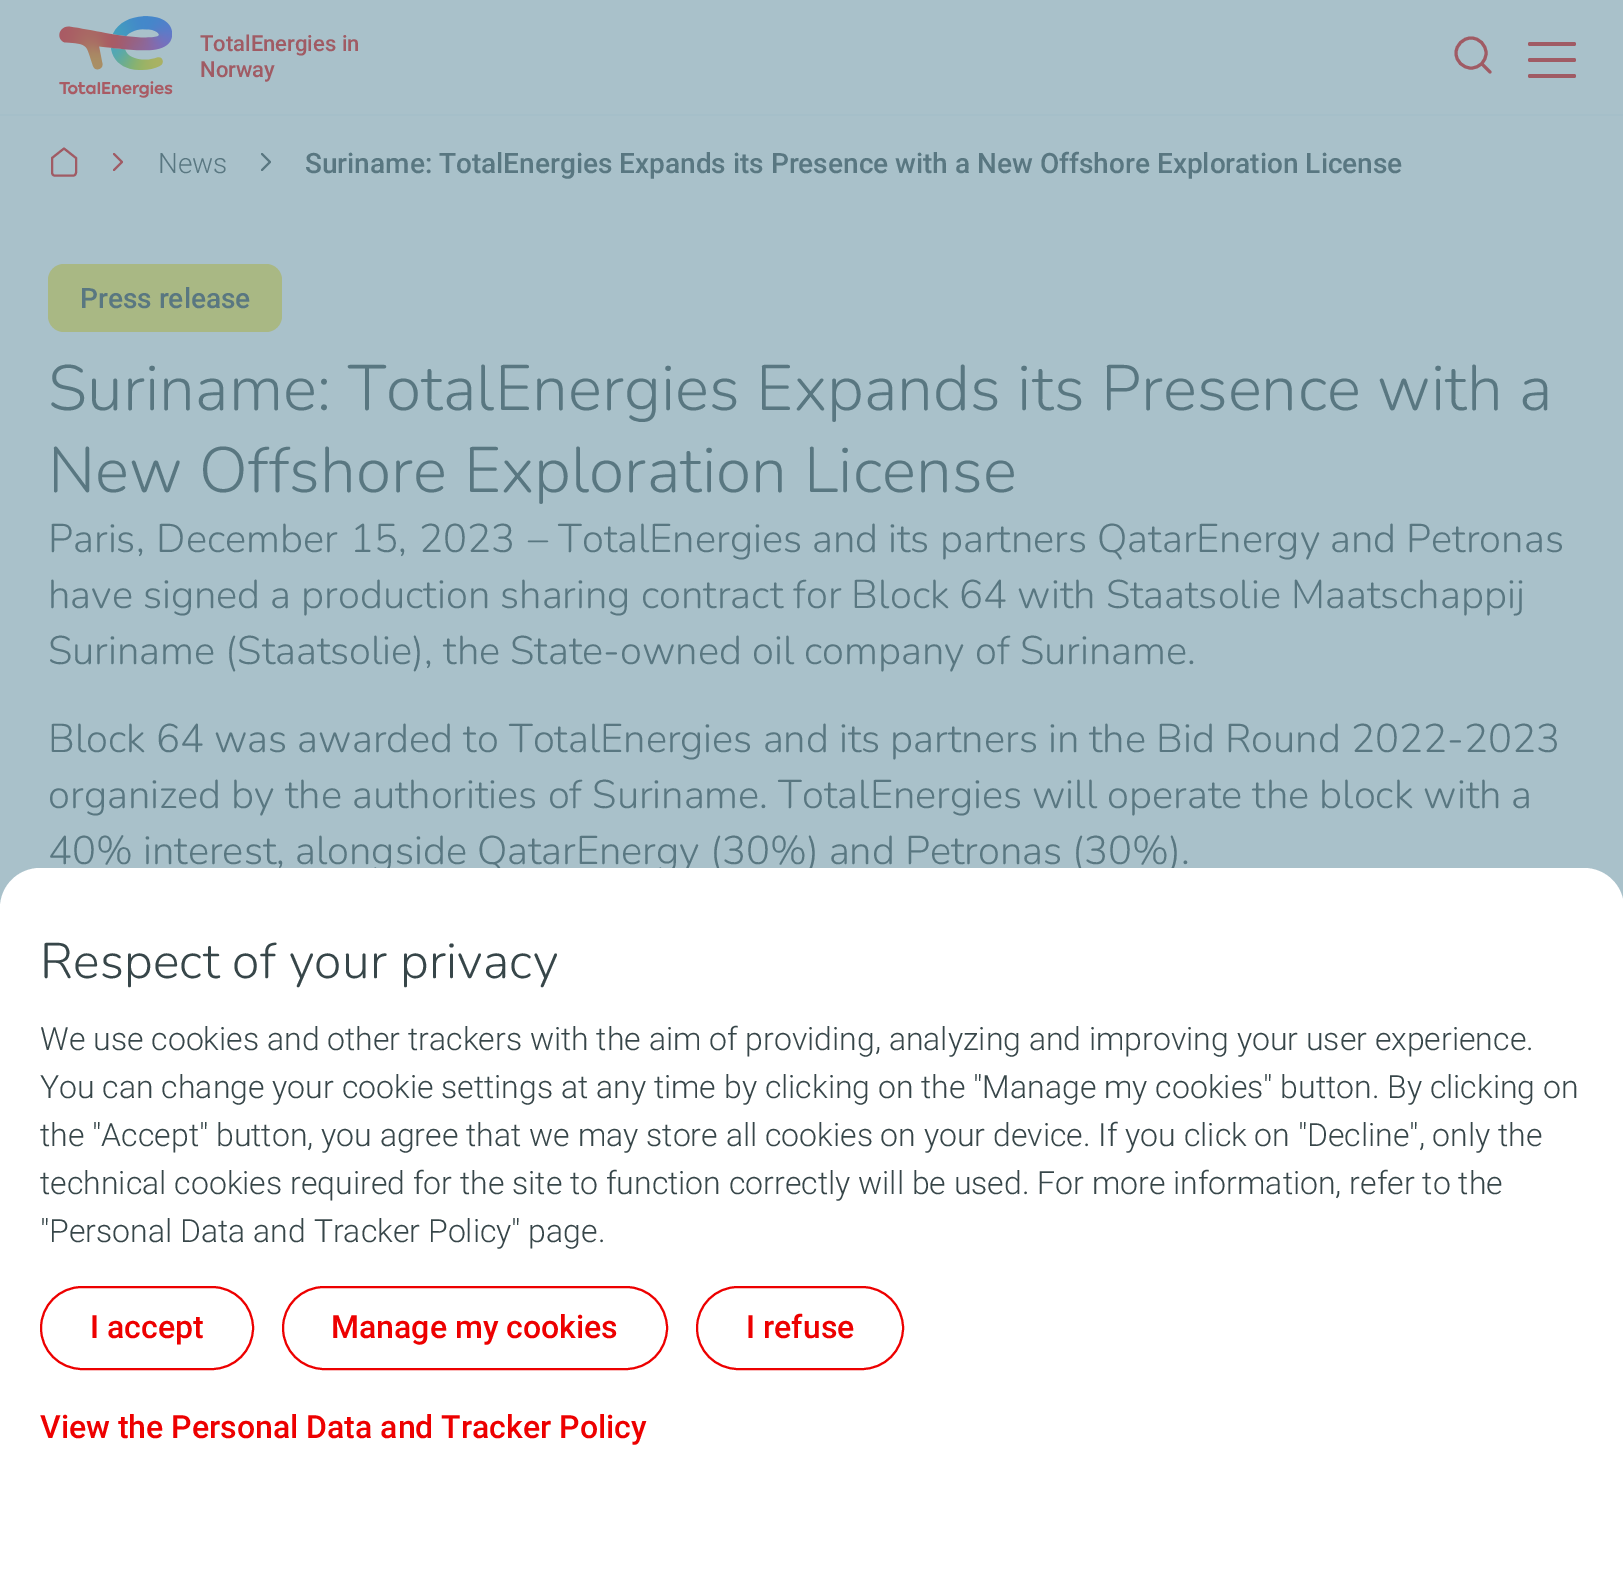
%!PS
<< /PageSize [1623 1579] >> setpagedevice
/m/moveto load def
/l/rlineto load def
/c/rcurveto load def
/z/closepath load def
/f/fill load def
/s/stroke load def
/w/setlinewidth load def
/C { dup -16 bitshift 255 div exch dup -8 bitshift 255 and 255 div exch 255 and 255 div setrgbcolor } def
/F { [ exch dup neg 0 0 3 -1 roll 0 0 ] selectfont } def
/T { moveto show } def
/R { rectfill } def
/Q { 5 dict begin { /r /h /w /y /x } { exch def } forall
  x r add y moveto x w add y 2 copy h add r arct x w add y h add x 1 index r arct
  x y h add x y r arct x y 2 copy exch w add exch r arct closepath end } def
/I { 5 dict begin { /h /w /y /x /name } { exch def } forall
  gsave x y translate w h scale
  w h 8 [w 0 0 h 0 0] name (r) file false 3 colorimage grestore end } def
0 1579 translate 1 -1 scale
4 setmiterlimit
16#A9C1CA C
0 0 1623 1579 R
16#A5BFC9 C
0 114 1623 2 R
(1.rgb) 59 16 114 82 I
/Roboto-Medium 22 F
16#A05B64 C
(TotalEnergies in) 200 51 T
(Norway) 200 77 T
3 w
1 setlinecap
1 setlinejoin
1490 72 m -8 -8 l 1486 53 m 0 8.5 -6.5 15 -15 15 c -8 0 -15 -6.5 -15 -15 c 0 -8 7 -15 15 -15 c 8.5 0 15 7 15 15 c z s
1528 42 48 4 2 Q f
1528 58 48 4 2 Q f
1528 74 48 4 2 Q f
2 w
52 158 m 12 -9.5 l 12 9.5 l 0 14.5 l 0 1.5 -1 3 -2.5 3 c -19 0 l -1.5 0 -2.5 -1.5 -2.5 -3 c z s
114 170 m 8 -8 l -8 -8 l s
/Roboto-Light 28 F
16#597781 C
(News) 158 173 T
262 170 m 8 -8 l -8 -8 l s
/Roboto-Medium 28 F
(Suriname: TotalEnergies Expands its Presence with a New Offshore Exploration License) 305 173 T
16#A9B884 C
48 264 234 68 16 Q f
16#597781 C
(Press release) 80 308 T
/Nunito-Light 64 F
48 410 m .2 0 (Suriname: TotalEnergies Expands its Presence with a) ashow
48 492 m .2 0 (New Offshore Exploration License) ashow
/Nunito-Light 40 F
48 552 m 2 0 32 (Paris, December 15, 2023) widthshow
(– TotalEnergies and its partners QatarEnergy and Petronas) 528 552 T
(have signed a production sharing contract for Block 64 with Staatsolie Maatschappij) 48 608 T
(Suriname \(Staatsolie\), the State-owned oil company of Suriname.) 48 664 T
(Block 64 was awarded to TotalEnergies and its partners in the Bid Round 2022-2023) 48 752 T
(organized by the authorities of Suriname. TotalEnergies will operate the block with a) 48 808 T
(40% interest, alongside QatarEnergy \(30%\) and Petronas \(30%\).) 48 864 T
16#FFFFFF C
40 868 m 1544 0 l 22 0 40 18 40 40 c 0 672 l -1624 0 l 0 -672 l 0 -22 18 -40 40 -40 c z f
/Nunito-Light 50 F
16#374649 C
40 978 m .2 0 (Respect of your privacy) ashow
/Roboto-Light 32 F
(We use cookies and other trackers with the aim of providing, analyzing and improving your user experience.) 40 1050 T
(You can change your cookie settings at any time by clicking on the "Manage my cookies" button. By clicking on) 40 1098 T
(the "Accept" button, you agree that we may store all cookies on your device. If you click on "Decline", only the) 40 1146 T
(technical cookies required for the site to function correctly will be used. For more information, refer to the) 40 1194 T
("Personal Data and Tracker Policy" page.) 40 1242 T
16#ED0000 C
0 setlinecap
0 setlinejoin
41 1287 212 82 41 Q s
/Roboto-Medium 32 F
(I accept) 90 1338 T
283 1287 384 82 41 Q s
(Manage my cookies) 331 1338 T
697 1287 206 82 41 Q s
(I refuse) 746 1338 T
(View the Personal Data and Tracker Policy) 40 1438 T
showpage
